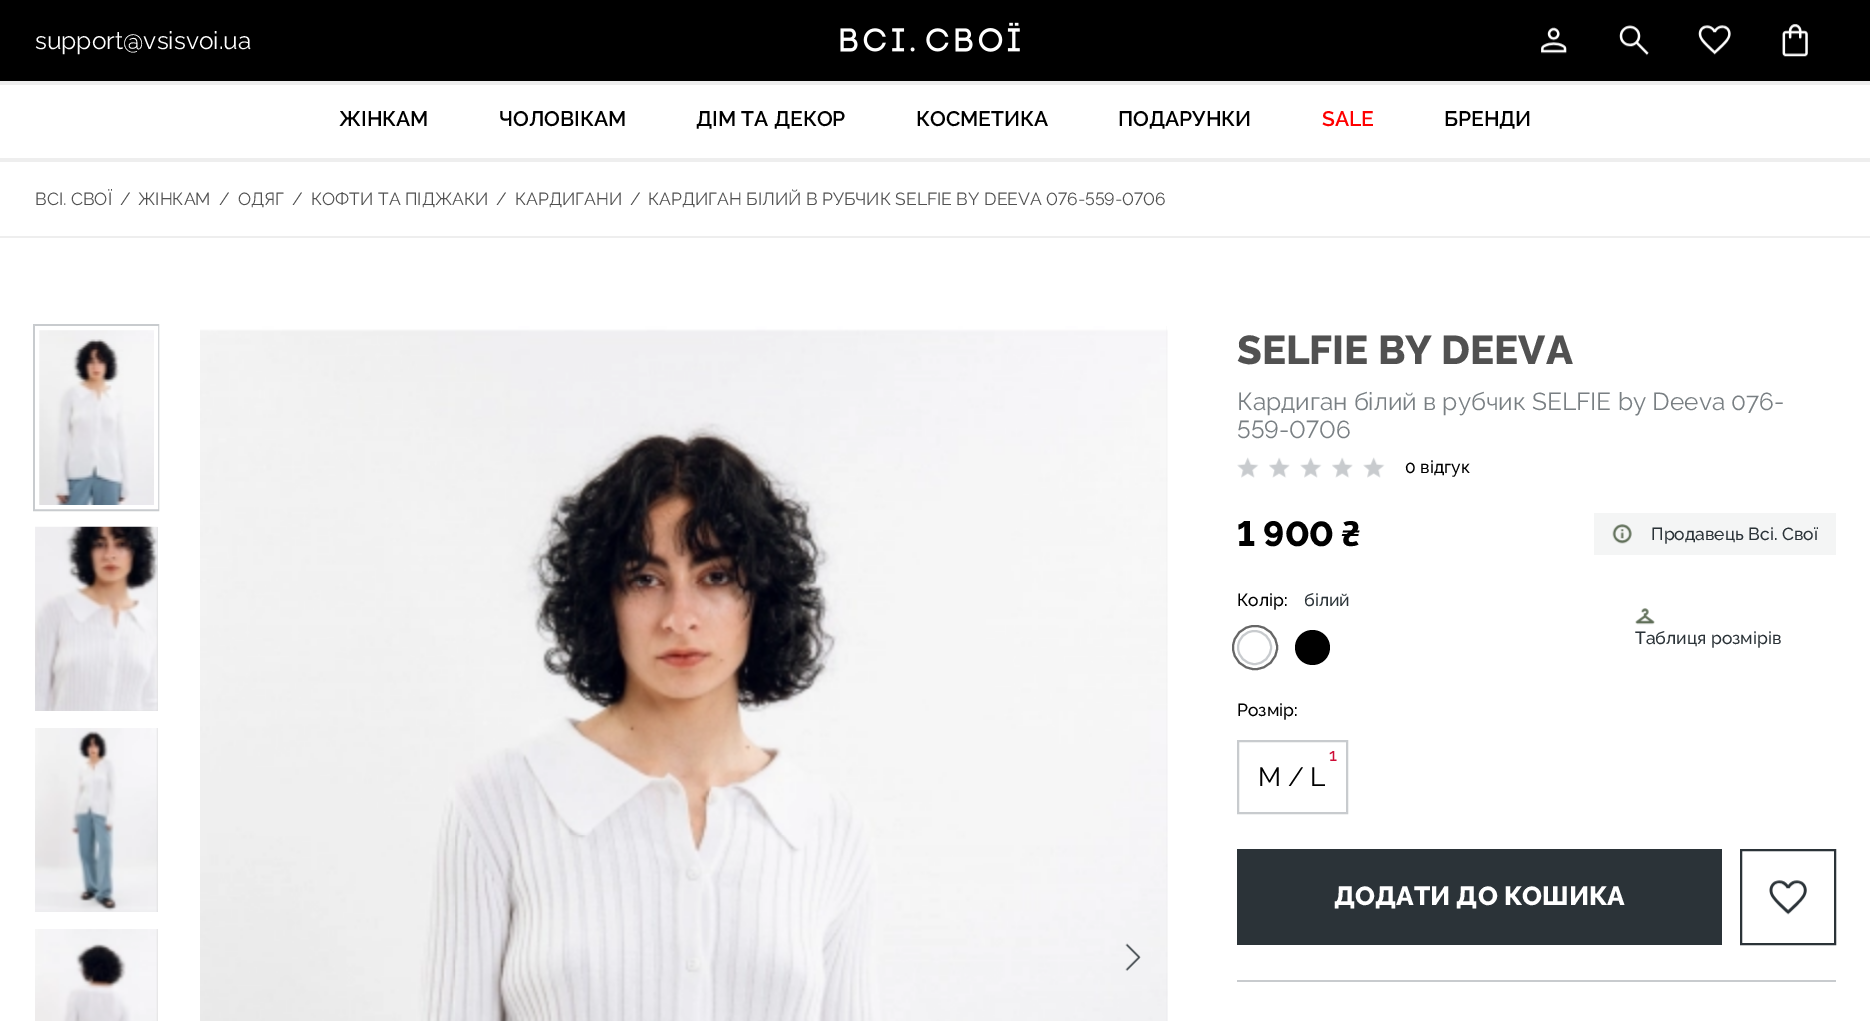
%!PS
<< /PageSize [1870 1021] >> setpagedevice
/f/fill load def
/s/stroke load def
/w/setlinewidth load def
/C { dup -16 bitshift 255 div exch dup -8 bitshift 255 and 255 div exch 255 and 255 div setrgbcolor } def
/F { [ exch dup neg 0 0 3 -1 roll 0 0 ] selectfont } def
/T { moveto show } def
/R { rectfill } def
/O { newpath 0 360 arc closepath } def
/Q { 5 dict begin { /r /h /w /y /x } { exch def } forall
  x r add y moveto x w add y 2 copy h add r arct x w add y h add x 1 index r arct
  x y h add x y r arct x y 2 copy exch w add exch r arct closepath end } def
/I { 5 dict begin { /h /w /y /x /name } { exch def } forall
  gsave x y translate w h scale
  w h 8 [w 0 0 h 0 0] name (r) file false 3 colorimage grestore end } def
0 1021 translate 1 -1 scale
4 setmiterlimit
16#FFFFFF C
0 0 1870 1021 R
16#000000 C
0 0 1870 81 R
/Raleway-Regular 24.5 F
16#FFFFFF C
(support@vsisvoi.ua) 35 49 T
(1.rgb) 840 22 180 30 I
(2.rgb) 1541 27 26 27 I
(3.rgb) 1619 25 30 31 I
(4.rgb) 1698 25 33 30 I
(5.rgb) 1782 24 26 33 I
16#EEEEEE C
0 81 1870 4 R
0 158 1870 4 R
/Raleway-SemiBold 21 F
16#000000 C
(ЖІНКАМ) 339 126 T
(ЧОЛОВІКАМ) 499 126 T
(ДІМ ТА ДЕКОР) 696 126 T
(КОСМЕТИКА) 916 126 T
(ПОДАРУНКИ) 1118 126 T
16#FF0000 C
(SALE) 1322 126 T
16#000000 C
(БРЕНДИ) 1444 126 T
16#EEEEEE C
0 236 1870 2 R
/Raleway-Regular 17.5 F
16#515151 C
(ВСІ. СВОЇ) 35 205 T
(/) 120 205 T
(ЖІНКАМ) 138 205 T
(/) 219 205 T
(ОДЯГ) 238 205 T
(/) 292 205 T
(КОФТИ ТА ПІДЖАКИ) 311 205 T
(/) 496 205 T
(КАРДИГАНИ) 515 205 T
(/) 630 205 T
/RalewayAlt-Regular 17.5 F
(КАРДИГАН БІЛИЙ В РУБЧИК SELFIE BY DEEVA 076-559-0706) 648 205 T
(6.rgb) 39 330 115 175 I
16#C8CBCE C
2 w
34 325 124 185 rectstroke
16#FFFFFF C
4 w
37 328 119 179 rectstroke
16#DDDDDD C
35 527 123 184 R
(7.rgb) 35 526 123 185 I
35 728 123 184 R
(8.rgb) 35 728 123 184 I
156 929 2 92 R
(9.rgb) 35 929 123 92 I
(10.rgb) 200 326 968 695 I
(11.rgb) 1125 943 16 28 I
/Raleway-ExtraBold 40.25 F
16#515151 C
(SELFIE BY DEEVA) 1237 364 T
/Raleway-Regular 24.5 F
16#797F83 C
(Кардиган білий в рубчик SELFIE by Deeva 076-) 1237 410 T
/RalewayAlt-Regular 24.5 F
(559-0706) 1237 438 T
(12.rgb) 1237 457 22 21 I
(13.rgb) 1269 457 21 21 I
(14.rgb) 1300 457 22 21 I
(13.rgb) 1332 457 21 21 I
(14.rgb) 1363 457 22 21 I
/Raleway-Medium 17.5 F
16#000000 C
(0 відгук) 1405 473 T
/RalewayAlt-ExtraBold 35 F
(1 900 ₴) 1237 546 T
16#F4F5F5 C
1594 513 242 42 R
(15.rgb) 1612 524 20 20 I
/Raleway-Medium 17.5 F
16#2B3338 C
(Продавець Всі. Свої) 1651 540 T
16#000000 C
(Колір:) 1237 606 T
16#2B3338 C
(білий) 1304 606 T
16#C8CBCE C
2 w
1254.5 647.5 16.5 O s
16#666666 C
1233 626 44 43 21.5 Q s
16#000000 C
1312.5 647.5 17.5 O f
(16.rgb) 1635 608 20 17 I
16#2B3338 C
(Таблиця розмірів) 1635 644 T
16#000000 C
(Розмір:) 1237 716 T
16#C8CBCE C
1238 741 109 72 rectstroke
16#CE0C36 C
(1) 1329 761 T
/Raleway-Regular 26.25 F
16#000000 C
(M / L) 1258 786 T
16#2B3338 C
1237 849 485 96 R
/Raleway-ExtraBold 26.25 F
16#FFFFFF C
(ДОДАТИ ДО КОШИКА) 1334 905 T
16#2B3338 C
1741 850 94 94 rectstroke
(17.rgb) 1769 880 38 35 I
16#C8CBCE C
1237 980 599 2 R
showpage
